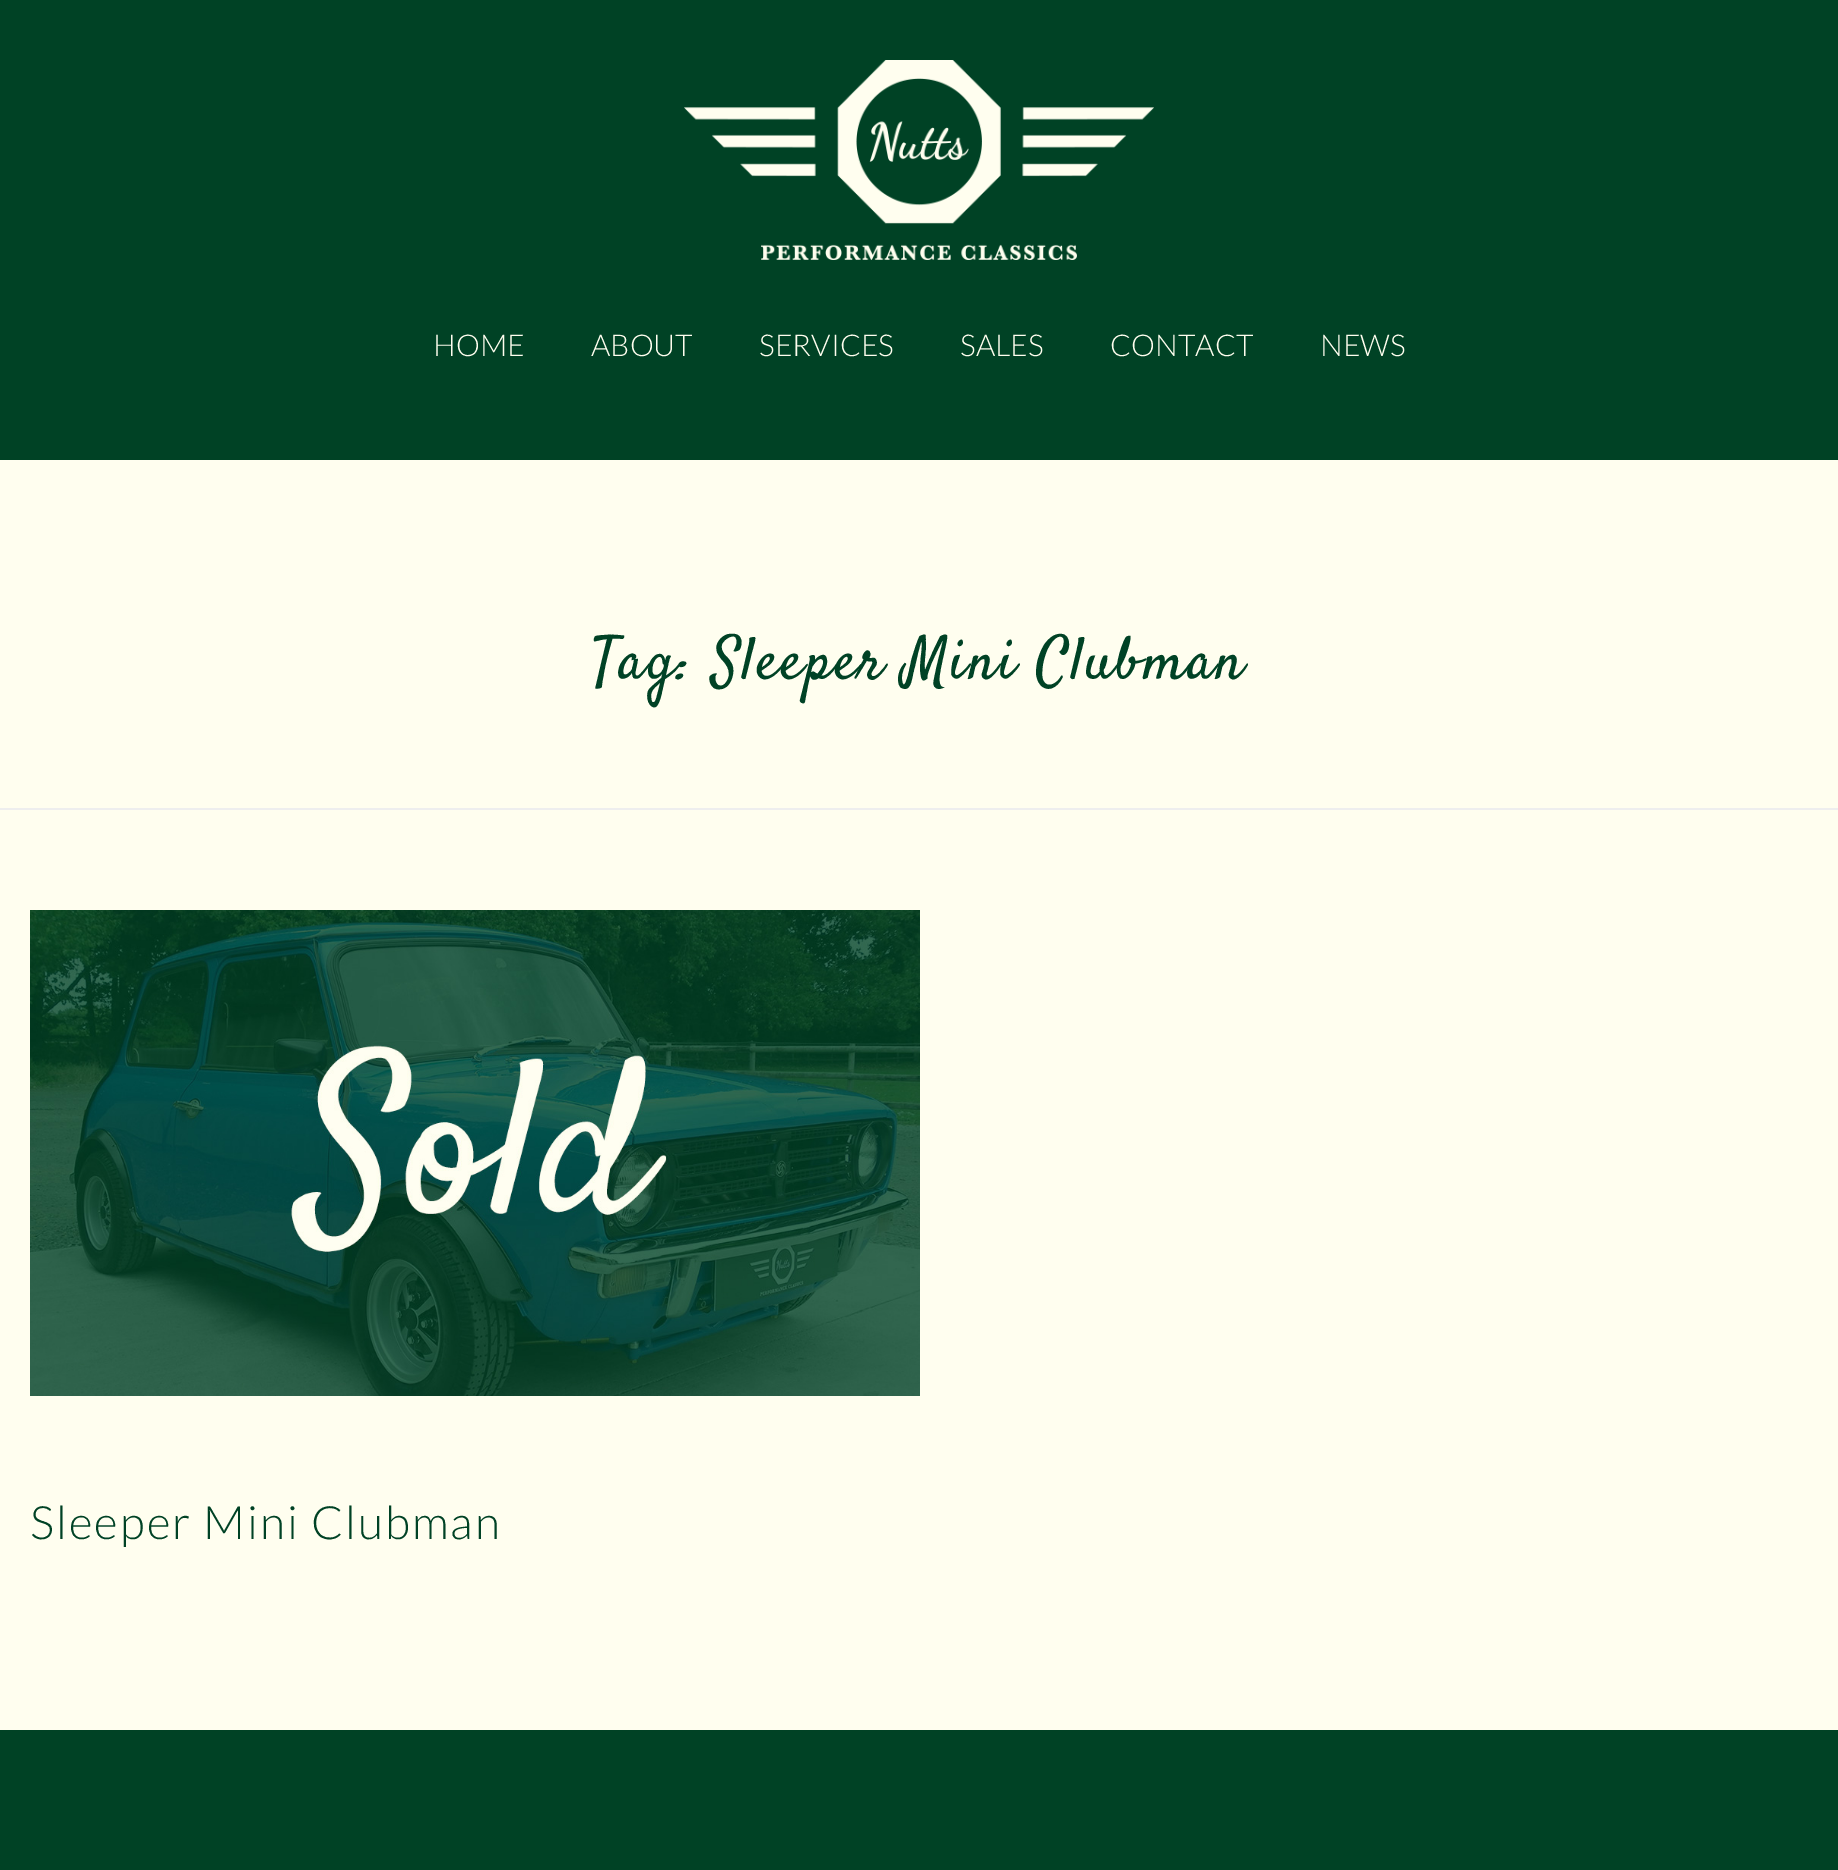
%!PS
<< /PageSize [1838 1870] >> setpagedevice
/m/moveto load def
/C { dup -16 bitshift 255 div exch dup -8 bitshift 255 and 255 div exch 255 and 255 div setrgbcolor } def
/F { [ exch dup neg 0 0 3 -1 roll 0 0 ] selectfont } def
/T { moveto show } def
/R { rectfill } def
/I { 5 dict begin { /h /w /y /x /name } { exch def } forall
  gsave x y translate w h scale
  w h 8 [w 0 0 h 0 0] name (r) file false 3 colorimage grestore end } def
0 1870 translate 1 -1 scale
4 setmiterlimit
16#004225 C
0 0 1838 1870 R
(1.rgb) 684 60 470 200 I
/Lato-Light 30 F
16#FFFEEF C
(HOME) 433 356 T
(ABOUT) 591 356 T
(SERVICES) 759 356 T
(SALES) 960 356 T
(CONTACT) 1110 356 T
(NEWS) 1320 356 T
0 460 1838 1270 R
16#EEEEEE C
0 808 1838 2 R
/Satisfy-Regular 60 F
16#004225 C
592 678 m 2 0 (Tag: Sleeper Mini Clubman) ashow
(2.rgb) 30 910 890 486 I
/Lato-Light 46 F
30 1539 m 2 0 (Sleeper Mini Clubman) ashow
showpage
